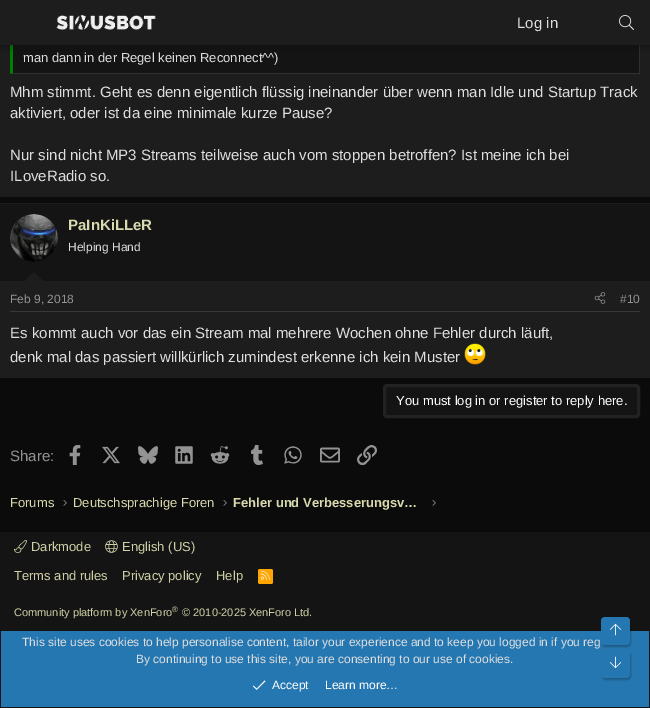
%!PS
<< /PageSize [650 708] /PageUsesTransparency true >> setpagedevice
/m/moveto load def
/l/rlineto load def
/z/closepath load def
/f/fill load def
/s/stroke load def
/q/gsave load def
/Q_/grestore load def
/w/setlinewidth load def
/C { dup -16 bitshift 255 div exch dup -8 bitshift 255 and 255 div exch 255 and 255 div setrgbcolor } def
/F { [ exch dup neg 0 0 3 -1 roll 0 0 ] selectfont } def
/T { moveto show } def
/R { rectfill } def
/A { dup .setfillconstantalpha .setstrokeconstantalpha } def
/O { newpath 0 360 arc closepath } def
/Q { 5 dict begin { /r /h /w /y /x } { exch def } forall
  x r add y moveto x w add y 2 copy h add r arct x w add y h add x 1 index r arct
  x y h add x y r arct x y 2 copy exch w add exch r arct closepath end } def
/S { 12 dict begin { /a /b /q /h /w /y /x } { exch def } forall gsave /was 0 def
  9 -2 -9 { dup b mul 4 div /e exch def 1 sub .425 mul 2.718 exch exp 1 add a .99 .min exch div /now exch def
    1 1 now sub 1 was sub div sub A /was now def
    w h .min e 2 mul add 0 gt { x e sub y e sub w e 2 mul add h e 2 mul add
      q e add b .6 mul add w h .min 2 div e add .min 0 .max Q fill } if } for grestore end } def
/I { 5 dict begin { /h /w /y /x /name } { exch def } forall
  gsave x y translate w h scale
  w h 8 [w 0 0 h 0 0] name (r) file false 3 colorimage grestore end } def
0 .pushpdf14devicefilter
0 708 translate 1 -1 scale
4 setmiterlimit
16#0B0B0B C
0 0 650 708 R
16#1D1D1D C
0 45 650 152 R
16#141414 C
10 45 630 29 R
16#303030 C
640 -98 m 0 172 l -1 -1 l 0 -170 l z f
0.12 A
16#FCFCFC C
640 74 m -630 0 l 3 -1 l 626 0 l z f
1 A
16#008000 C
10 74 m 0 -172 l 3 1 l 0 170 l z f
16#000000 C
-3 -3 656 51 0 4 .3 S
16#1D1D1D C
0 0 650 45 R
(1.rgb) 56 15 100 15 I
/LiberationSans-Regular 15 F
16#DEDEDE C
(Log in) 517 28 T
(2.rgb) 619 15 15 15 I
/LiberationSans-Regular 13 F
(man dann in der Regel keinen Reconnect^^\)) 23 62 T
/LiberationSans-Regular 15 F
(Mhm stimmt. Geht es denn eigentlich flüssig ineinander über wenn man Idle und Startup Track) 10 97 T
(aktiviert, oder ist da eine minimale kurze Pause?) 10 118 T
(Nur sind nicht MP3 Streams teilweise auch vom stoppen betroffen? Ist meine ich bei) 10 160 T
(ILoveRadio so.) 10 181 T
16#1D1D1D C
0 203 650 175 R
16#141414 C
0 204 650 77 R
16#1D1D1D C
34 238 24 O f
(3.rgb) 10 214 48 48 I
/LiberationSans-Bold 15 F
16#DADAAF C
(PaInKiLLeR) 68 230 T
/LiberationSans-Regular 12 F
16#DEDEDE C
(Helping Hand) 68 251 T
16#1D1D1D C
43 281 m -18 0 l 9 -9 l z f
16#383838 C
10 311 630 1 R
16#939393 C
(Feb 9, 2018) 10 303 T
(4.rgb) 594 292 12 12 I
(#10) 620 303 T
/LiberationSans-Regular 15 F
16#DEDEDE C
(Es kommt auch vor das ein Stream mal mehrere Wochen ohne Fehler durch läuft,) 10 338 T
(denk mal das passiert willkürlich zumindest erkenne ich kein Muster) 10 362 T
(5.rgb) 464 343 22 22 I
16#141414 C
384.5 385.5 254 31 2.5 Q q f Q_
16#222222 C
3 w
s
/LiberationSans-Regular 13 F
16#FFFFFF C
(You must log in or register to reply here.) 396 405 T
/LiberationSans-Regular 15 F
16#939393 C
(Share:) 10 461 T
(6.rgb) 69 445 12 20 I
(7.rgb) 102 446 18 18 I
(8.rgb) 138 446 20 18 I
(9.rgb) 175 446 18 18 I
(10.rgb) 210 446 20 18 I
(11.rgb) 251 445 12 20 I
(12.rgb) 284 446 18 18 I
(13.rgb) 320 447 20 16 I
(14.rgb) 357 445 20 20 I
/LiberationSans-Regular 13 F
16#DADAAF C
(Forums) 10 507 T
(15.rgb) 63 500 4 6 I
(Deutschsprachige Foren) 73 507 T
(15.rgb) 223 500 4 6 I
/LiberationSans-Bold 13 F
(Fehler und Verbesserungsv…) 233 507 T
(15.rgb) 432 500 4 6 I
16#141414 C
0 532 650 176 R
(16.rgb) 14 540 13 13 I
/LiberationSans-Regular 13 F
16#D0D0A7 C
(Darkmode) 31 551 T
(17.rgb) 105 540 13 13 I
(English \(US\)) 122 551 T
(Terms and rules) 14 580 T
(Privacy policy) 122 580 T
(Help) 216 580 T
16#FFA500 C
258 569 15 15 2 Q f
(18.rgb) 260 570 10 10 I
/LiberationSans-Regular 11 F
16#D0D0A7 C
(Community platform by XenForo) 14 616 T
/LiberationSans-Regular 8 F
(®) 172 612 T
/LiberationSans-Regular 11 F
(© 2010-2025 XenForo Ltd.) 182 616 T
16#2577B1 C
1 631 648 76 R
/LiberationSans-Regular 12 F
16#DEDEDE C
(This site uses cookies to help personalise content, tailor your experience and to keep you logged in if you reg) 22 646 T
(By continuing to use this site, you are consenting to our use of cookies.) 136 663 T
(19.rgb) 253 680 13 10 I
16#FFFFFF C
(Accept) 272 689 T
(Learn more…) 325 689 T
16#000000 C
602 619 29 28 4 1 .25 S
16#2577B1 C
601 617 29 28 4 Q f
(20.rgb) 609 623 13 13 I
16#000000 C
602 652 29 28 4 1 .25 S
16#2577B1 C
601 650 29 28 4 Q f
(21.rgb) 609 656 13 13 I
.poppdf14devicefilter showpage
